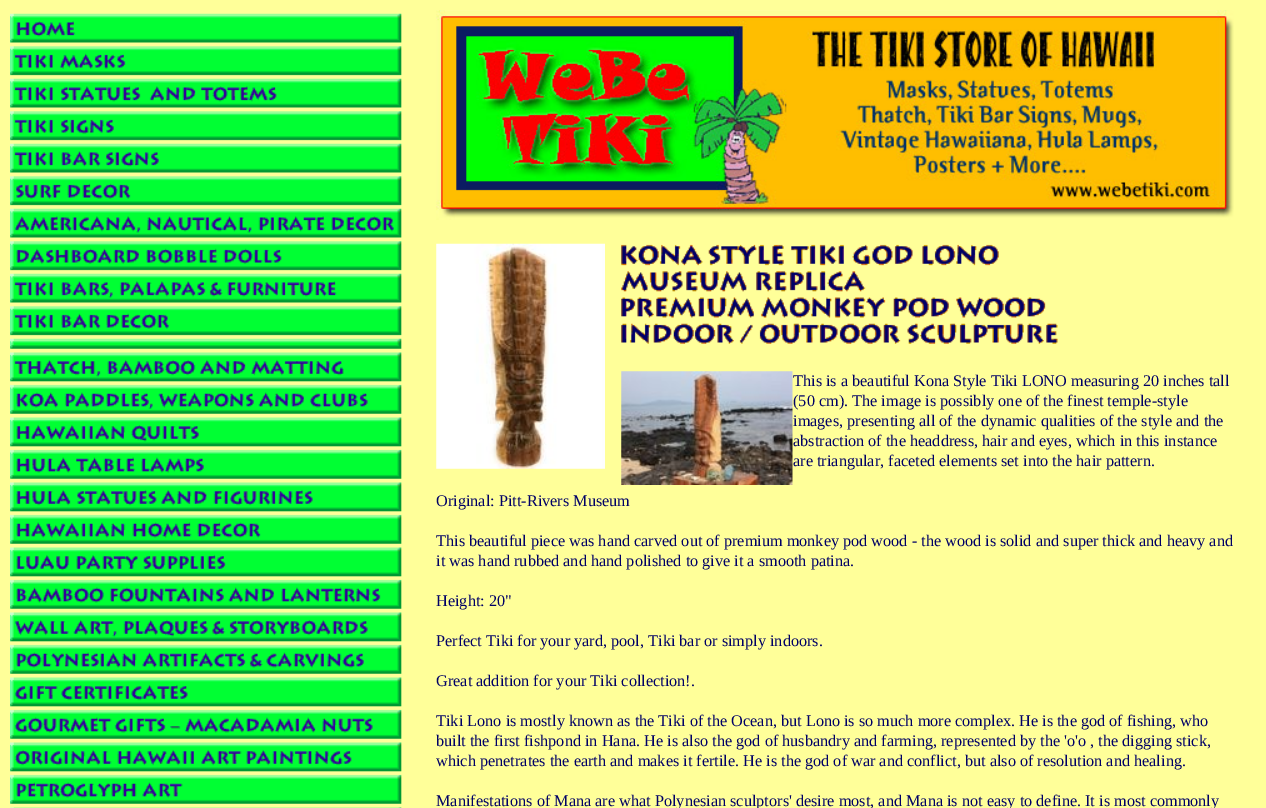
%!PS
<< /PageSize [1266 808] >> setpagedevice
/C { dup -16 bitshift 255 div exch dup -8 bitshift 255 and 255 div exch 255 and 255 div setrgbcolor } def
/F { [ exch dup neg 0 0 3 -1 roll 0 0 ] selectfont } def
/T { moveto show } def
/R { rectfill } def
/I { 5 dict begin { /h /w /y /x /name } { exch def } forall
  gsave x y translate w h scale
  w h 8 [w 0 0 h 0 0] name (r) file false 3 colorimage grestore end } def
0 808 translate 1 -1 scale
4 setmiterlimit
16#FFFF99 C
0 0 1266 808 R
(1.rgb) 10 13 392 795 I
(2.rgb) 436 10 798 210 I
(3.rgb) 436 243 169 226 I
(4.rgb) 621 244 437 100 I
(5.rgb) 621 371 172 114 I
/LiberationSerif-Regular 16.25 F
16#000066 C
(This is a beautiful Kona Style Tiki LONO measuring 20 inches tall) 793 386 T
(\(50 cm\). The image is possibly one of the finest temple-style) 793 406 T
(images, presenting all of the dynamic qualities of the style and the) 793 426 T
(abstraction of the headdress, hair and eyes, which in this instance) 793 446 T
(are triangular, faceted elements set into the hair pattern.) 793 466 T
(Original: Pitt-Rivers Museum) 436 506 T
(This beautiful piece was hand carved out of premium monkey pod wood - the wood is solid and super thick and heavy and) 436 546 T
(it was hand rubbed and hand polished to give it a smooth patina.) 436 566 T
(Height: 20") 436 606 T
(Perfect Tiki for your yard, pool, Tiki bar or simply indoors.) 436 646 T
(Great addition for your Tiki collection!.) 436 686 T
(Tiki Lono is mostly known as the Tiki of the Ocean, but Lono is so much more complex. He is the god of fishing, who) 436 726 T
(built the first fishpond in Hana. He is also the god of husbandry and farming, represented by the 'o'o , the digging stick,) 436 746 T
(which penetrates the earth and makes it fertile. He is the god of war and conflict, but also of resolution and healing.) 436 766 T
(Manifestations of Mana are what Polynesian sculptors' desire most, and Mana is not easy to define. It is most commonly) 436 806 T
showpage
